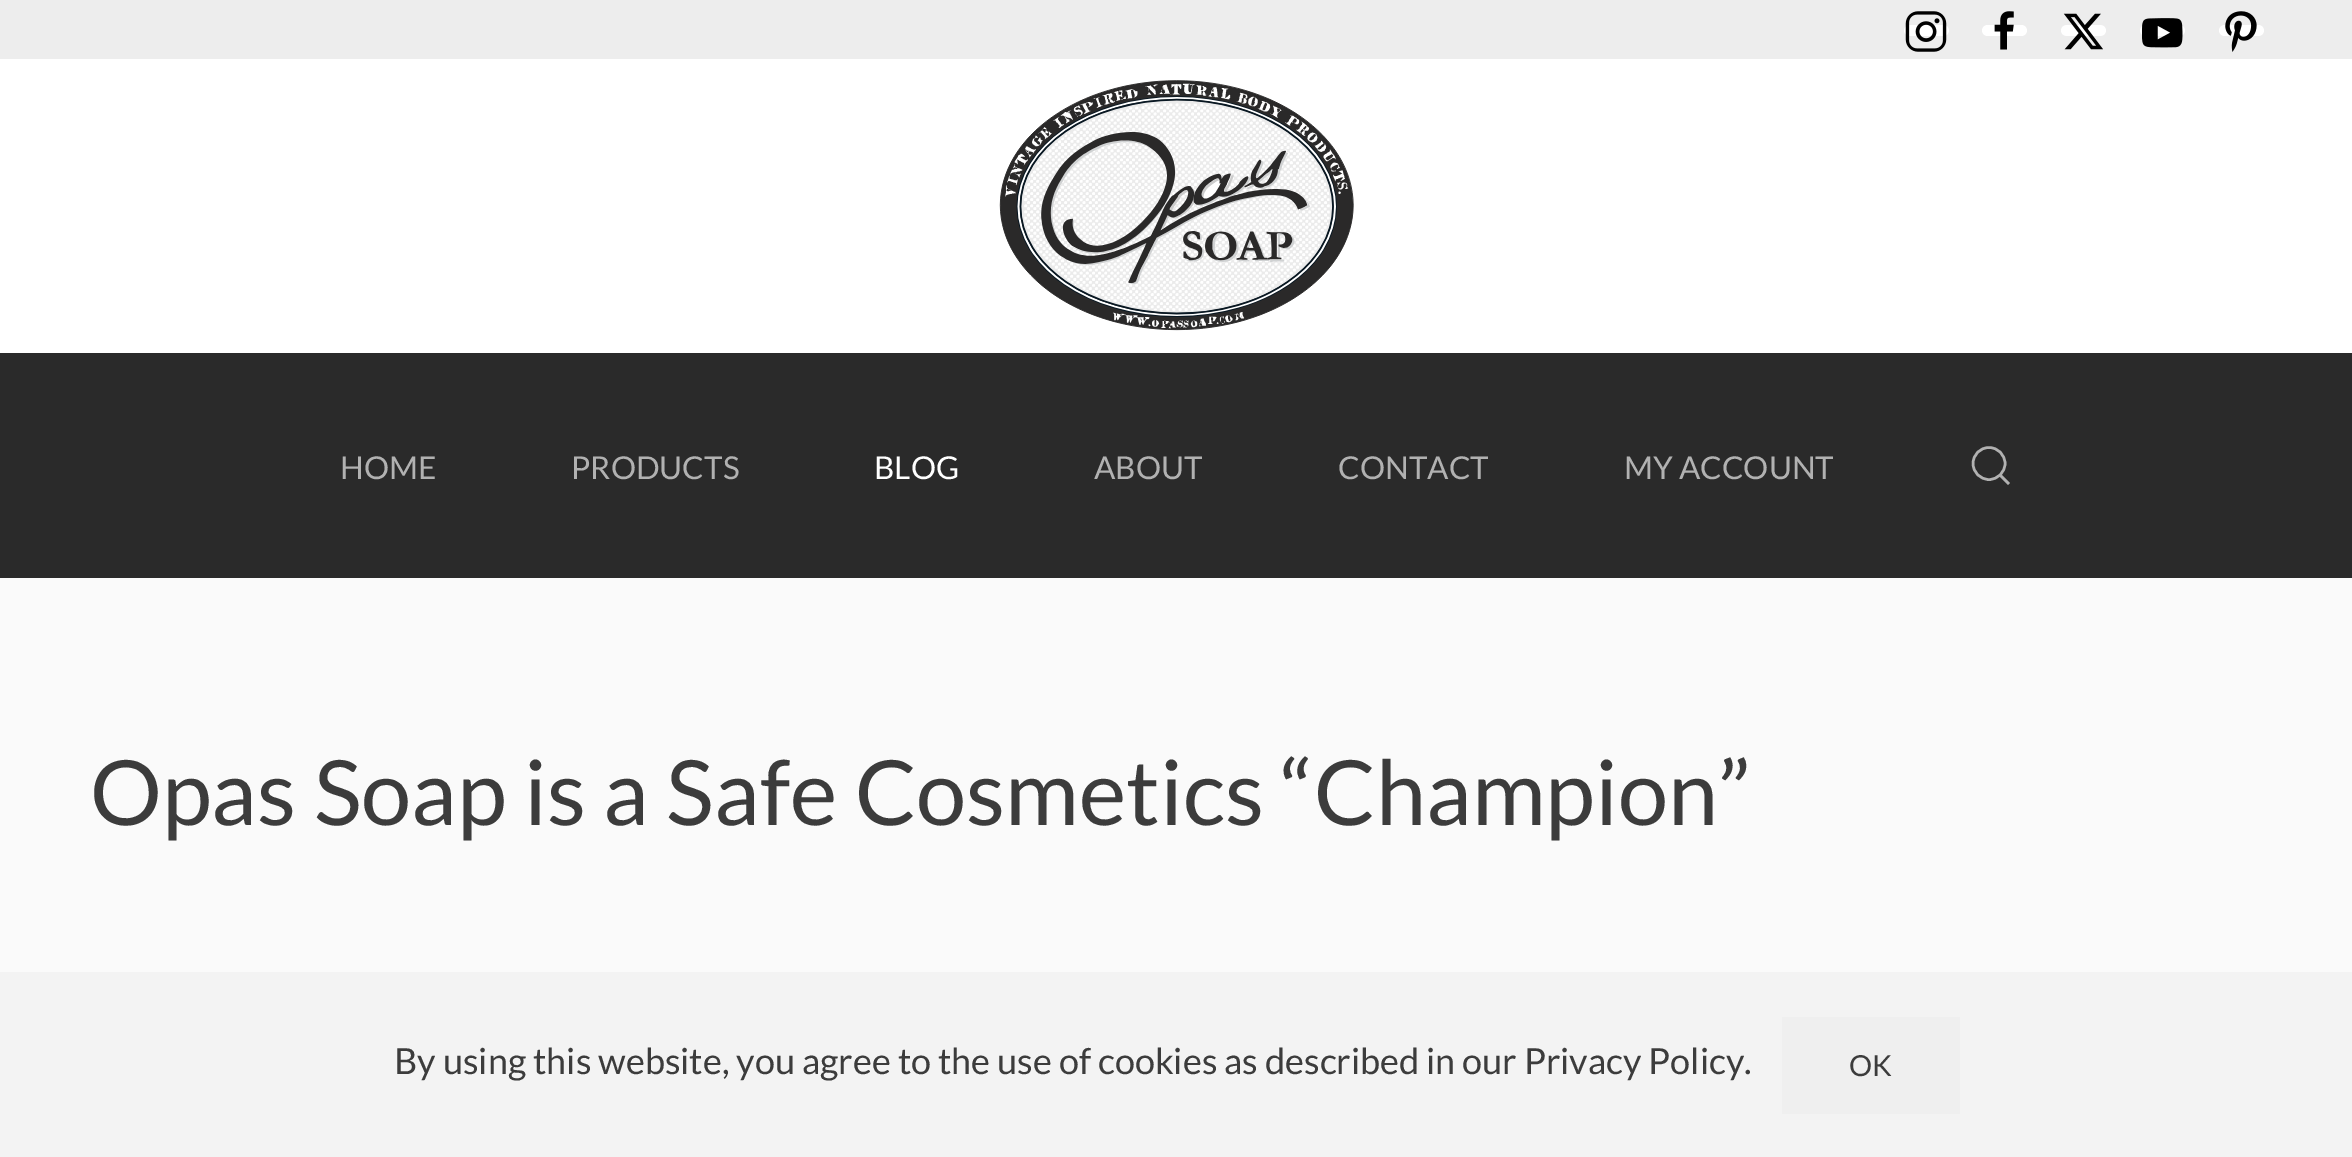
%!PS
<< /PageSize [2352 1157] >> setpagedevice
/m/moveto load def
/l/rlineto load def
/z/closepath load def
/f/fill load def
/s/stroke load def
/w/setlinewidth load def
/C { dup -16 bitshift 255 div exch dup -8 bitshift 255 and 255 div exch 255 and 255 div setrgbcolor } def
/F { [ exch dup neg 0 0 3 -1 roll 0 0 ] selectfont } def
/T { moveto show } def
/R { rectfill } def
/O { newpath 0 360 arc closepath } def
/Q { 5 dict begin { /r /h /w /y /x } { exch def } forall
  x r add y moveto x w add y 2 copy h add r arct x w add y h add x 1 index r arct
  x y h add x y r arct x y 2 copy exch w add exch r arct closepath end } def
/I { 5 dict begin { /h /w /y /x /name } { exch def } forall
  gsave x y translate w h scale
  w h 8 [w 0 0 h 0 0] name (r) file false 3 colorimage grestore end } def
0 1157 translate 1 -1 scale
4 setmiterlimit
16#FAFAFA C
0 0 2352 1157 R
16#EDEDED C
0 0 2352 59 R
16#FFFFFF C
1904 25 45 11 5.5 Q f
(1.rgb) 1905 11 42 41 I
1982 25 45 11 5.5 Q f
(2.rgb) 1994 11 20 39 I
2061 25 45 11 5.5 Q f
(3.rgb) 2063 13 40 37 I
2140 25 45 11 5.5 Q f
(4.rgb) 2142 18 41 30 I
2219 25 45 11 5.5 Q f
(5.rgb) 2225 11 32 41 I
0 59 2352 294 R
(6.rgb) 999 80 355 251 I
16#2A2A2A C
0 353 2352 225 R
/Lato-Regular 31.5 F
16#B1B1B1 C
(HOME) 340 479 T
(PRODUCTS) 571 479 T
16#FFFFFF C
(BLOG) 874 479 T
16#B1B1B1 C
(ABOUT) 1094 479 T
(CONTACT) 1338 479 T
(MY ACCOUNT) 1624 479 T
2.5 w
1989 463.5 16 O s
2000 475 m 9 9 l z s
/Lato-Regular 90 F
16#3C3C3C C
(Opas Soap is a Safe Cosmetics “Champion”) 90 825 T
16#F3F3F3 C
0 972 2352 185 R
/Lato-Regular 36 F
16#3C3C3C C
(By using this website, you agree to the use of cookies as described in our Privacy Policy.) 394 1074 T
16#EFEFEF C
1782 1017 178 97 R
/Lato-Regular 29 F
16#3C3C3C C
(OK) 1849 1076 T
showpage
